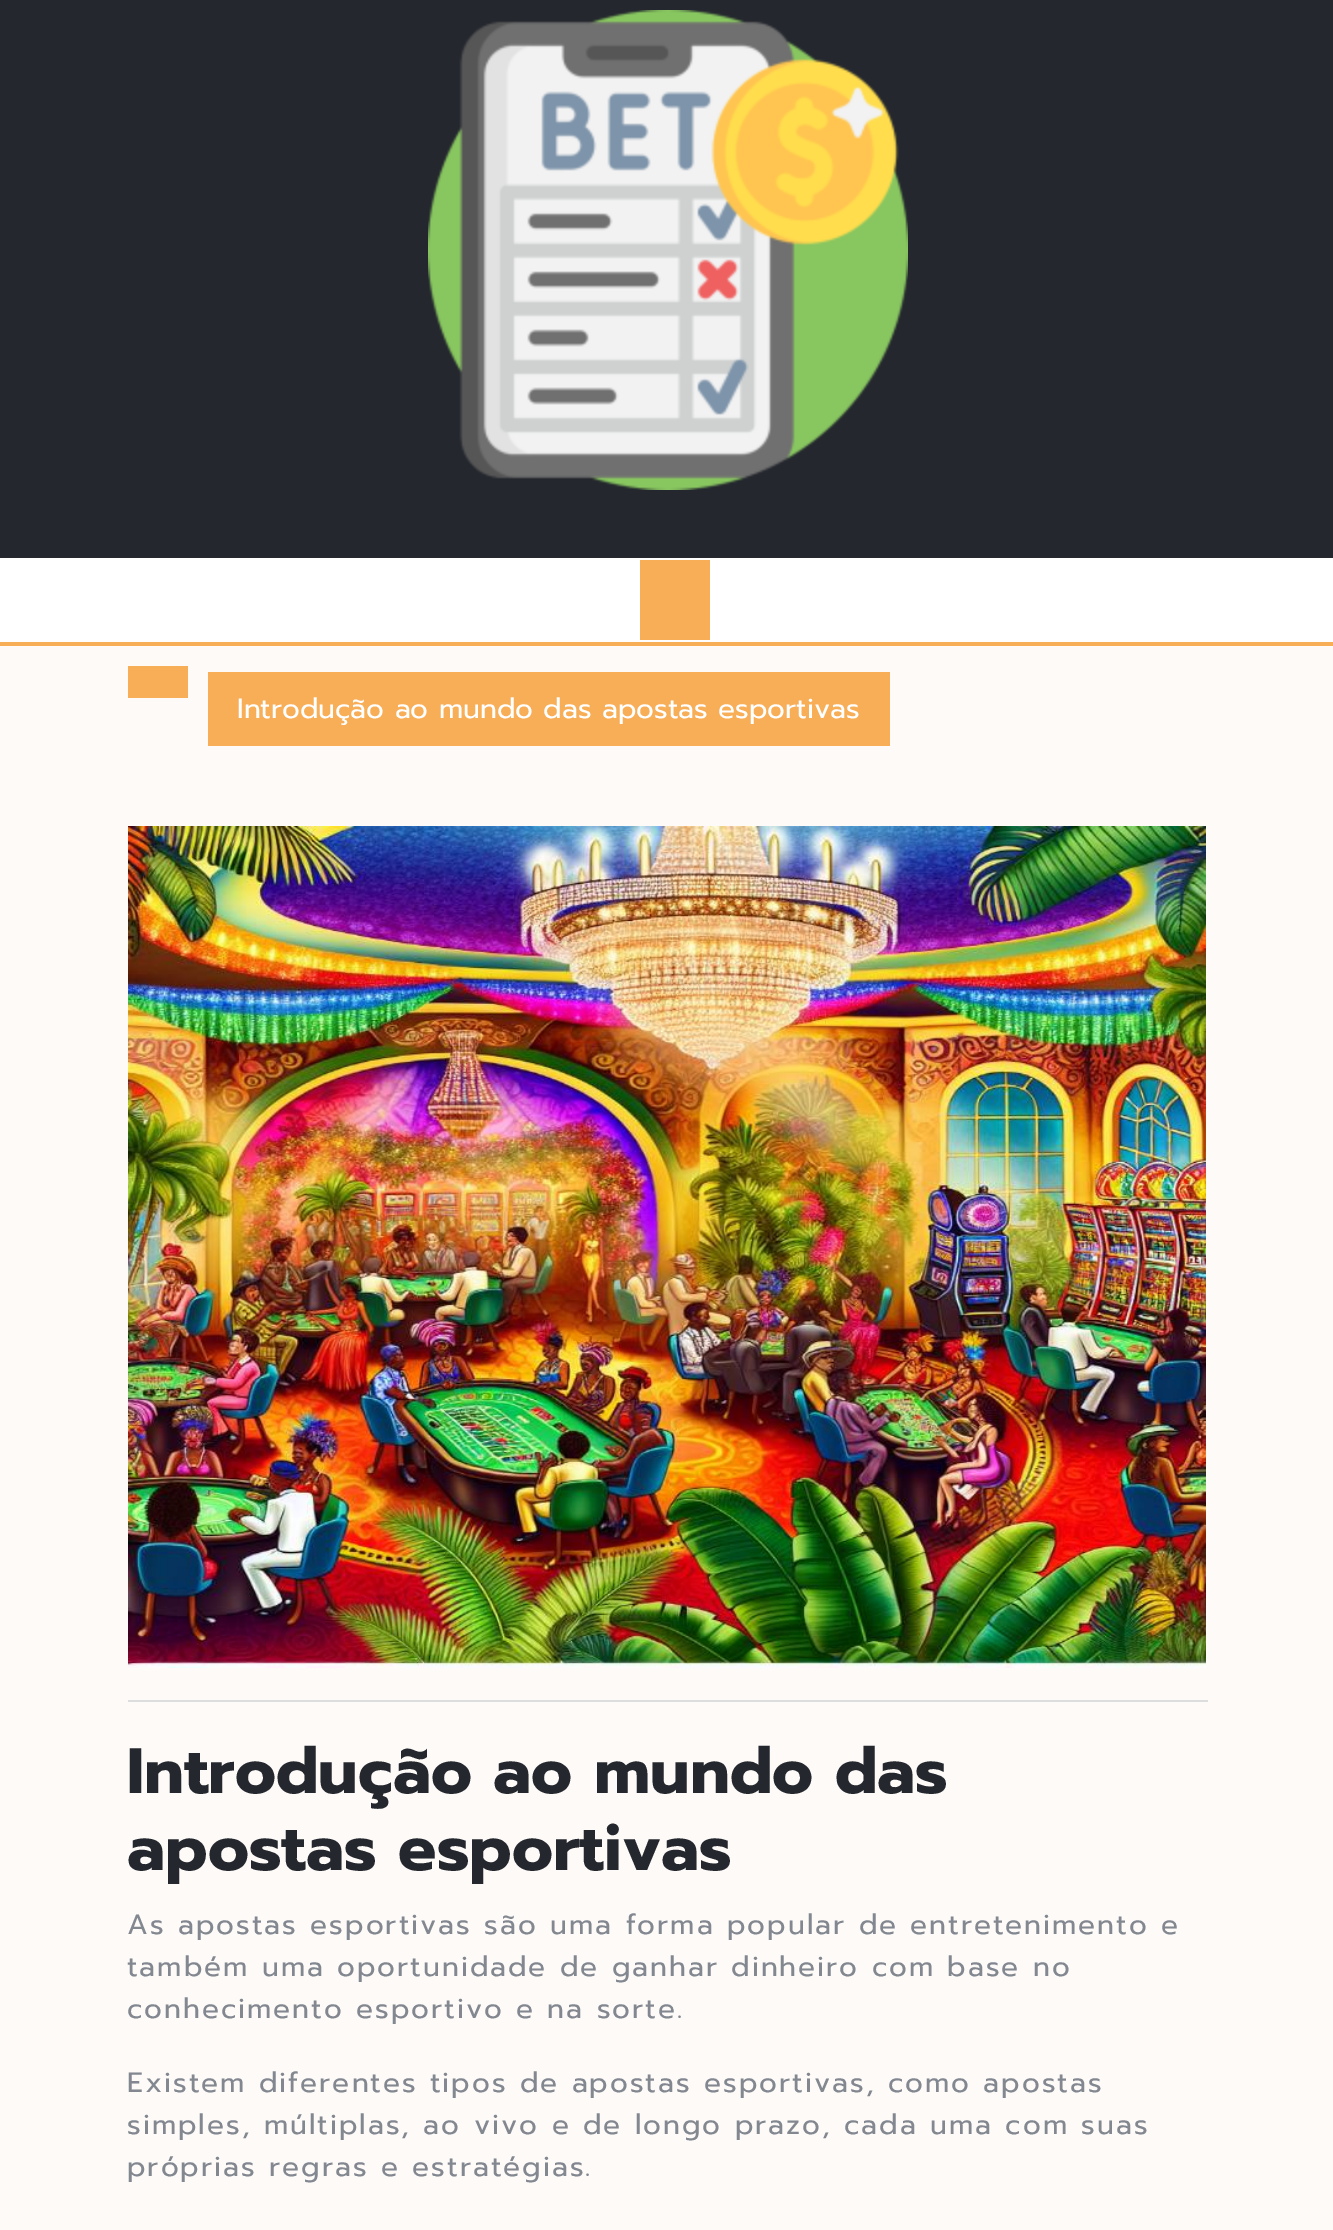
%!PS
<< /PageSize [1333 2230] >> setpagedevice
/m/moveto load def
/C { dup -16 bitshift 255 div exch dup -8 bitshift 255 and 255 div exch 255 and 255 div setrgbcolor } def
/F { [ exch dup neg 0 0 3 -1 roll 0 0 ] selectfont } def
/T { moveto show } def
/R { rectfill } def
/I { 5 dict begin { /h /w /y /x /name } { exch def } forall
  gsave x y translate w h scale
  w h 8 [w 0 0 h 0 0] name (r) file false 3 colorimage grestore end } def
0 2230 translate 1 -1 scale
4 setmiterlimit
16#FDFAF7 C
0 0 1333 2230 R
16#24272E C
0 0 1333 558 R
(1.rgb) 428 10 480 480 I
16#FFFFFF C
0 558 1333 84 R
16#F8AE57 C
0 642 1333 4 R
640 560 70 80 R
128 666 60 32 R
208 672 682 74 R
/Prompt-Regular 28 F
16#FFFFFF C
(Introdução ao mundo das apostas esportivas) 237 718 T
(2.rgb) 128 826 1078 842 I
16#DEDDDD C
128 1700 1080 2 R
/Prompt-Bold 64 F
16#24272E C
(Introdução ao mundo das) 127 1793 T
(apostas esportivas) 127 1870 T
/Prompt-Regular 28 F
16#828790 C
127 1934 m 2 0 (As apostas esportivas são uma forma popular de entretenimento e) ashow
127 1976 m 2 0 (também uma oportunidade de ganhar dinheiro com base no) ashow
127 2018 m 2 0 (conhecimento esportivo e na sorte.) ashow
127 2092 m 2 0 (Existem diferentes tipos de apostas esportivas, como apostas) ashow
127 2134 m 2 0 (simples, múltiplas, ao vivo e de longo prazo, cada uma com suas) ashow
127 2176 m 2 0 (próprias regras e estratégias.) ashow
showpage
